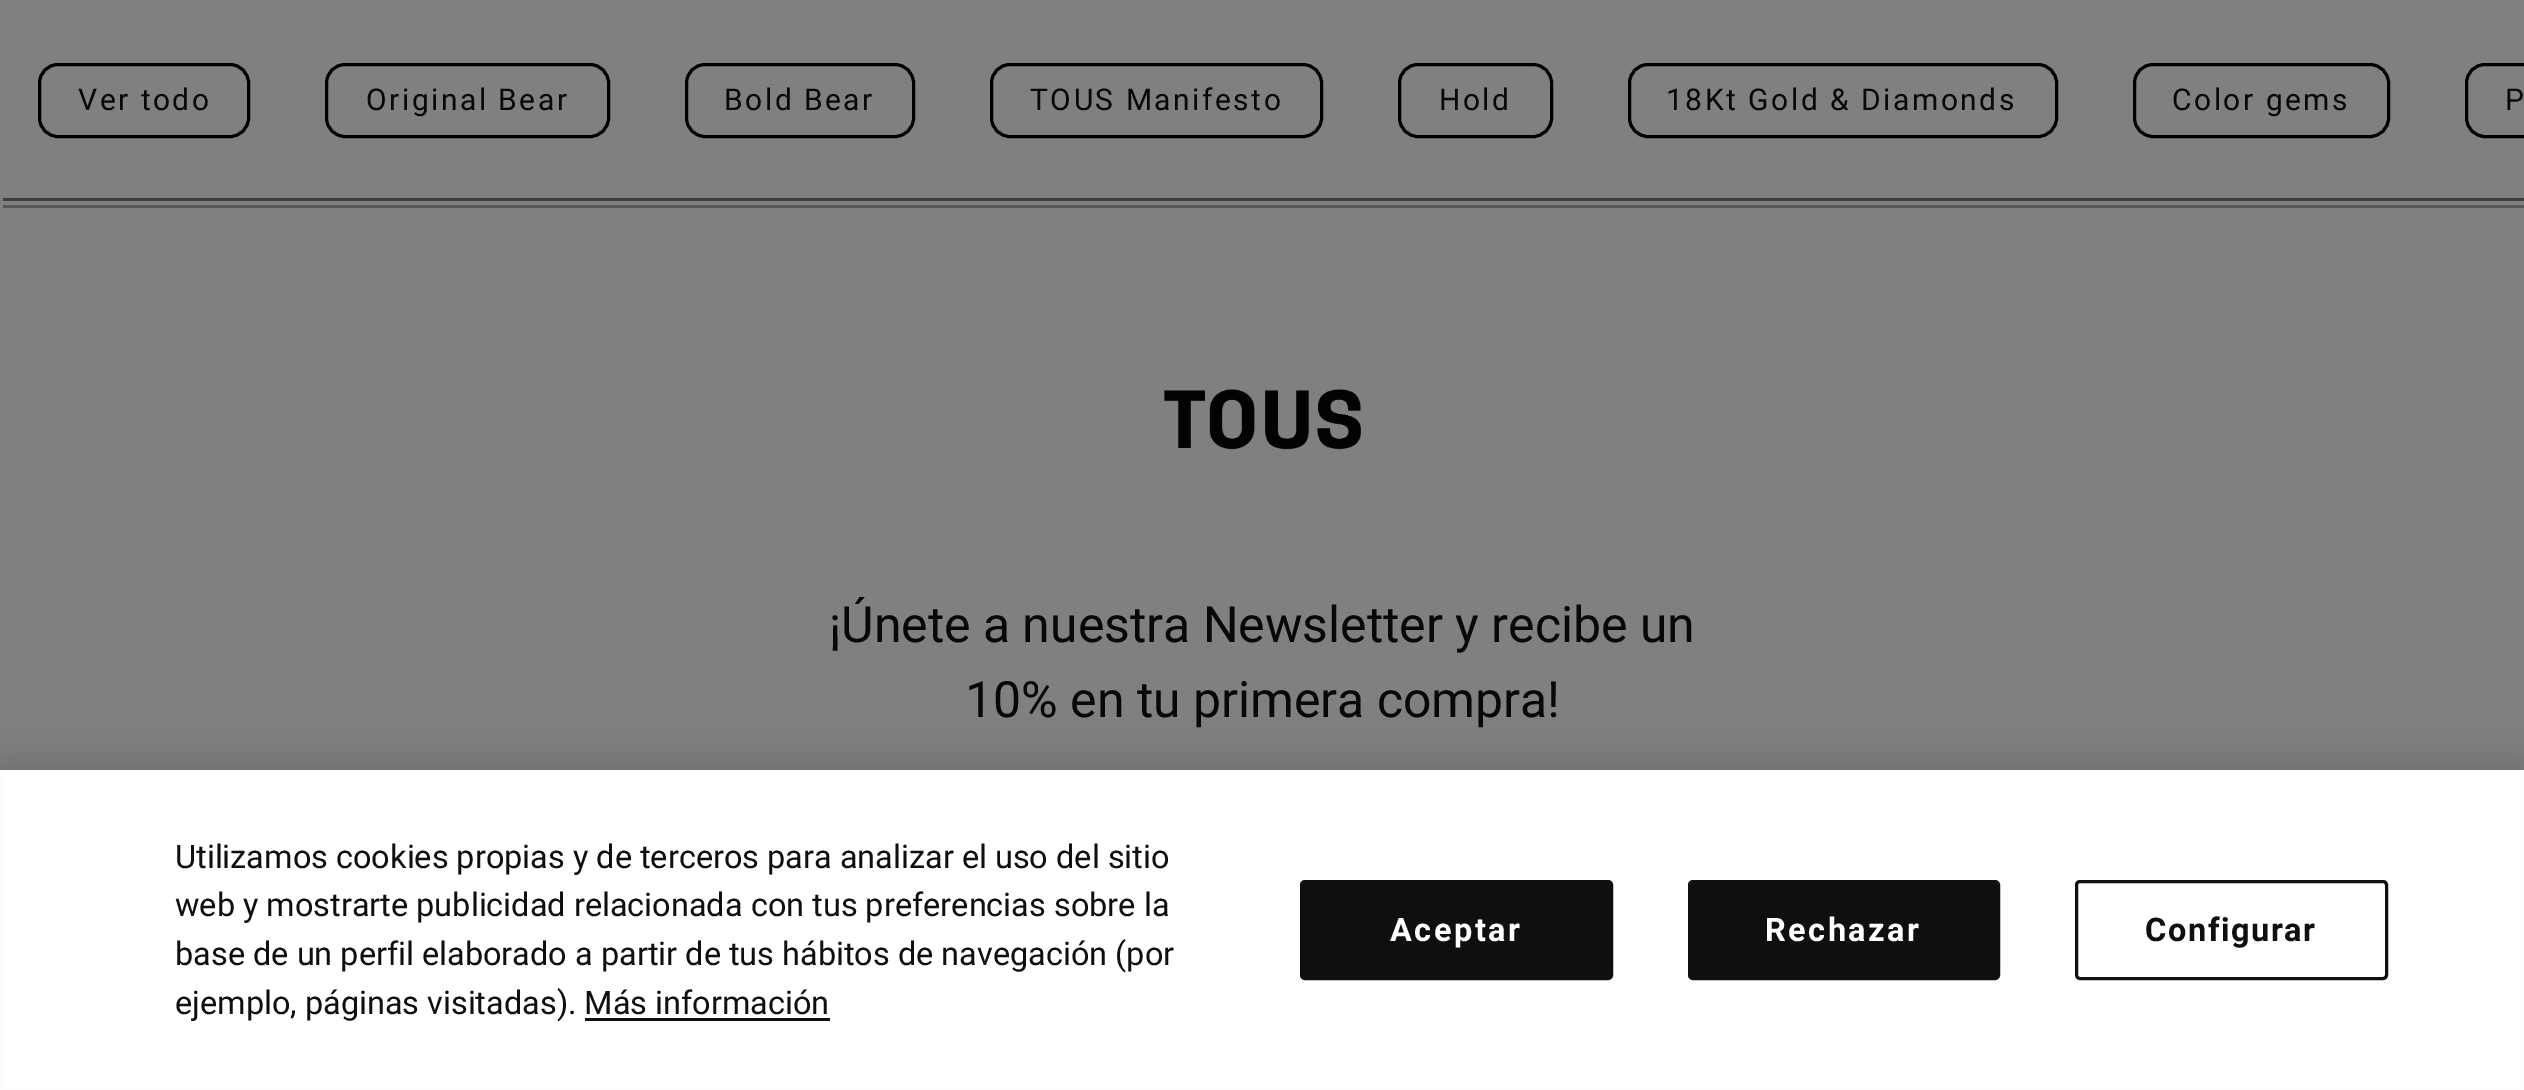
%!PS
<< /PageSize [2524 1090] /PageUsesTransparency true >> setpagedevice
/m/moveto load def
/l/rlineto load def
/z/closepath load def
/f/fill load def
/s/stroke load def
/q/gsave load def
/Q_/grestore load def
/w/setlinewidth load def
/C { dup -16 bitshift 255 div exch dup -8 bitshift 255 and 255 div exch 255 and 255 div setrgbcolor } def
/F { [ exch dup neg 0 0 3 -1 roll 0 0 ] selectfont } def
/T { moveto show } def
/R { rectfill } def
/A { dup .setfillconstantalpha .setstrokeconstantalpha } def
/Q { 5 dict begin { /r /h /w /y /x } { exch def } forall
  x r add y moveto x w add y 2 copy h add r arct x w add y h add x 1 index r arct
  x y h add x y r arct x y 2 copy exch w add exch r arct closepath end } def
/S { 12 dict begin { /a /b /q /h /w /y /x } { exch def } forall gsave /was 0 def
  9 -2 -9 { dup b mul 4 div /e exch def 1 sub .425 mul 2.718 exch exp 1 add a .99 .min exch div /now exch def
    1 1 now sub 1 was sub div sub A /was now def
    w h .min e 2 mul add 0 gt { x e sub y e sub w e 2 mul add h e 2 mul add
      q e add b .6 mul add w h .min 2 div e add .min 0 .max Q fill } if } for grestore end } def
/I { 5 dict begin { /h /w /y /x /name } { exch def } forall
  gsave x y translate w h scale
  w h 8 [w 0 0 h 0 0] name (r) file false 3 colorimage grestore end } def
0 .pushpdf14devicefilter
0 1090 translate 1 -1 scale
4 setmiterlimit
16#808080 C
0 0 2524 1090 R
16#3F3F3F C
0 198 2524 3 R
16#000000 C
3 w
39.5 64.5 209 72 18.5 Q s
/Roboto-Regular 30 F
16#080808 C
78 110 m 2.5 0 (Ver todo) ashow
16#000000 C
326.5 64.5 282 72 18.5 Q s
16#080808 C
366 110 m 2.5 0 (Original Bear) ashow
16#000000 C
686.5 64.5 227 72 18.5 Q s
16#080808 C
724 110 m 2.5 0 (Bold Bear) ashow
16#000000 C
991.5 64.5 330 72 18.5 Q s
16#080808 C
1030 110 m 2.5 0 (TOUS Manifesto) ashow
16#000000 C
1399.5 64.5 152 72 18.5 Q s
16#080808 C
1439 110 m 2.5 0 (Hold) ashow
16#000000 C
1629.5 64.5 427 72 18.5 Q s
16#080808 C
1666 110 m 2.5 0 (18Kt Gold & Diamonds) ashow
16#000000 C
2134.5 64.5 254 72 18.5 Q s
16#080808 C
2172 110 m 2.5 0 (Color gems) ashow
16#000000 C
2466.5 64.5 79 72 18.5 Q s
16#080808 C
2505 110 m 2.5 0 (P) ashow
16#575757 C
0 205 2524 3 R
16#808080 C
0 198 3 10 R
(1.rgb) 1164 389 197 61 I
/Roboto-Regular 50 F
16#080808 C
(¡Únete a nuestra Newsletter y recibe un) 829 642 T
(10% en tu primera compra!) 965 717 T
16#000000 C
0 770 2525 320 0 22.5 .2 S
16#FFFFFF C
1.5 771.5 m 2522 0 l 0 317 l -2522 0 l z q f Q_
16#FDFDFE C
s
/Roboto-Regular 32.5 F
16#0F0F10 C
(Utilizamos cookies propias y de terceros para analizar el uso del sitio) 175 868 T
(web y mostrarte publicidad relacionada con tus preferencias sobre la) 175 916 T
(base de un perfil elaborado a partir de tus hábitos de navegación \(por) 175 965 T
(ejemplo, páginas visitadas\). Más información) 175 1014 T
585 1018 245 3 R
1301.5 881.5 310 97 3.5 Q q f Q_
s
/Roboto-Bold 32.5 F
16#FFFFFF C
1390 941 m 2.5 0 (Aceptar) ashow
16#0F0F10 C
1689.5 881.5 309 97 3.5 Q q f Q_
s
16#FFFFFF C
1765 941 m 2.5 0 (Rechazar) ashow
16#0F0F10 C
2076.5 881.5 310 97 3.5 Q s
2145 941 m 1.6 0 (Configurar) ashow
.poppdf14devicefilter showpage
